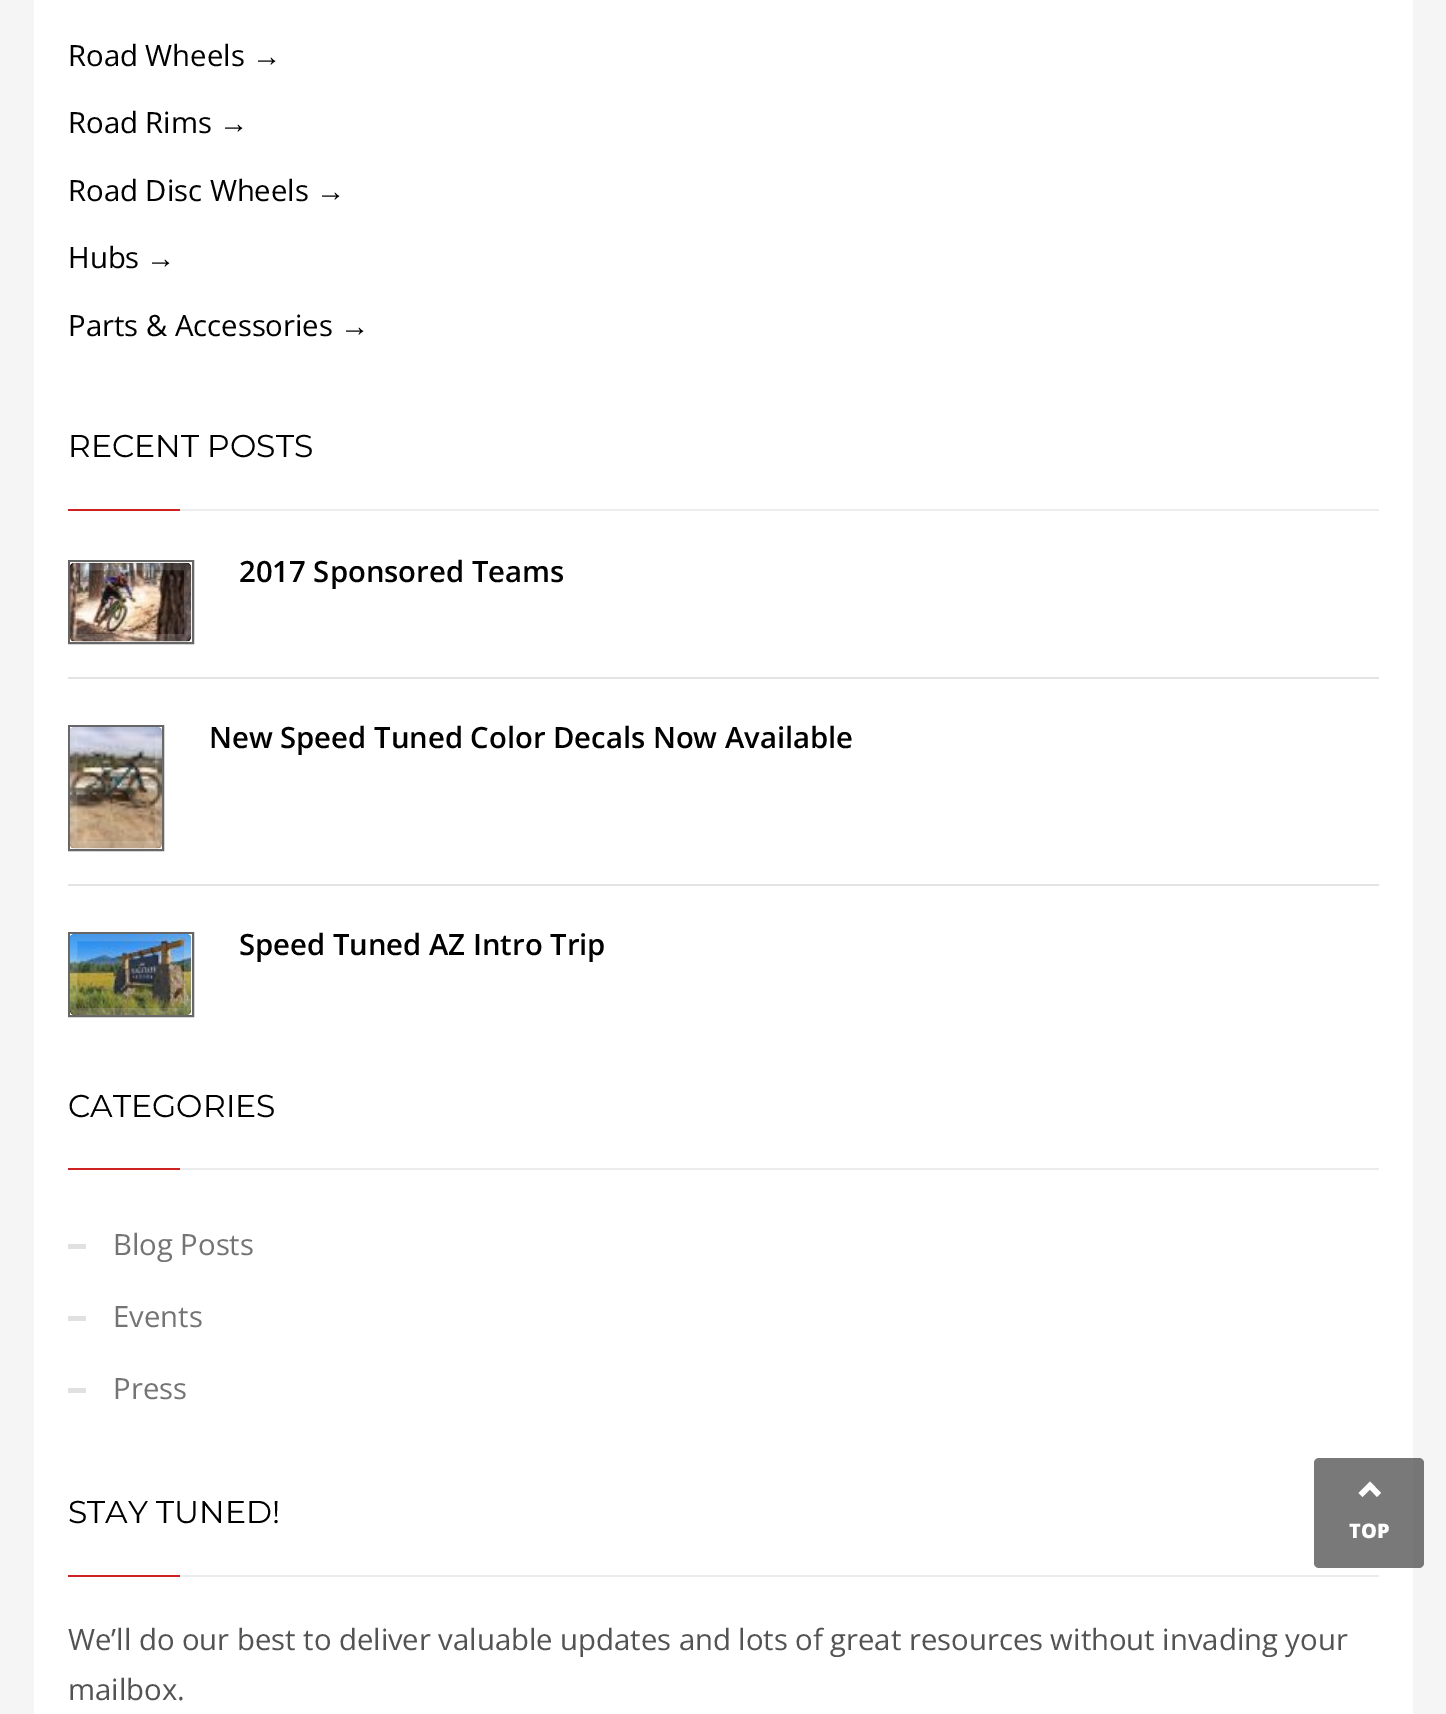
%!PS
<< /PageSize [1446 1714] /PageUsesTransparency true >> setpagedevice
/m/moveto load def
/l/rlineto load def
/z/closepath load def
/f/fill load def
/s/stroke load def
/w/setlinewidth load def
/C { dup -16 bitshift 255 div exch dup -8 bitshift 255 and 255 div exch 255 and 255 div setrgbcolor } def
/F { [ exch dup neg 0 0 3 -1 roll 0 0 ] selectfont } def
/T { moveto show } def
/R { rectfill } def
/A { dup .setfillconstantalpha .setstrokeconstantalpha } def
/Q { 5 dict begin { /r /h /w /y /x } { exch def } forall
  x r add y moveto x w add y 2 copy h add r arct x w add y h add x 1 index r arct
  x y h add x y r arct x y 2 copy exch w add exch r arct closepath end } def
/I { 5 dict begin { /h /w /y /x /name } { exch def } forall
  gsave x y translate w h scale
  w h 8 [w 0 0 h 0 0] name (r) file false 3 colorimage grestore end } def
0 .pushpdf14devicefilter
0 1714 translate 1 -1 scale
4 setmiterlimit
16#F5F5F5 C
0 0 1446 1714 R
16#FFFFFF C
34 0 1379 1714 R
/OpenSans-Regular 29.25 F
16#000000 C
(Road Wheels) 68 66 T
/LiberationSans-Regular 29.25 F
(→) 252 66 T
/OpenSans-Regular 29.25 F
(Road Rims) 68 133 T
/LiberationSans-Regular 29.25 F
(→) 219 133 T
/OpenSans-Regular 29.25 F
(Road Disc Wheels) 68 201 T
/LiberationSans-Regular 29.25 F
(→) 316 201 T
/OpenSans-Regular 29.25 F
(Hubs) 68 268 T
/LiberationSans-Regular 29.25 F
(→) 146 268 T
/OpenSans-Regular 29.25 F
(Parts & Accessories) 68 336 T
/LiberationSans-Regular 29.25 F
(→) 340 336 T
/Montserrat-Regular 31.5 F
(RECENT POSTS) 68 457 T
16#CD2122 C
68 509 112 2 R
16#ECECEC C
180 509 1199 2 R
16#E3E3E3 C
68 677 1311 2 R
16#666666 C
2 w
69 561 124 82 rectstroke
(1.rgb) 69 562 123 80 I
0.15 A
16#FFFFFF C
7 w
73.5 566.5 114 71 3.5 Q s
/OpenSans-SemiBold 29.25 F
1 A
16#000000 C
(2017 Sponsored Teams) 239 582 T
16#E3E3E3 C
68 884 1311 2 R
16#666666 C
2 w
69 726 94 124 rectstroke
(2.rgb) 69 727 93 122 I
0.15 A
16#FFFFFF C
7 w
73.5 730.5 85 114 3.5 Q s
1 A
16#000000 C
(New Speed Tuned Color Decals Now Available) 209 748 T
16#666666 C
2 w
69 933 124 83 rectstroke
(3.rgb) 69 934 123 81 I
0.15 A
16#FFFFFF C
7 w
73.5 937.5 114 74 3.5 Q s
1 A
16#000000 C
(Speed Tuned AZ Intro Trip) 239 955 T
/Montserrat-Regular 31.5 F
(CATEGORIES) 68 1117 T
16#CD2122 C
68 1168 112 2 R
16#ECECEC C
180 1168 1199 2 R
16#E1E1E1 C
68 1244 18 5 R
/OpenSans-Regular 29.25 F
16#747474 C
(Blog Posts) 113 1255 T
16#E1E1E1 C
68 1316 18 5 R
16#747474 C
(Events) 113 1327 T
16#E1E1E1 C
68 1388 18 5 R
16#747474 C
(Press) 113 1399 T
/Montserrat-Regular 31.5 F
16#000000 C
(STAY TUNED!) 68 1523 T
16#CD2122 C
68 1575 112 2 R
16#ECECEC C
180 1575 1199 2 R
/OpenSans-Regular 29.25 F
16#535353 C
(We’ll do our best to deliver valuable updates and lots of great resources without invading your) 68 1650 T
(mailbox.) 68 1700 T
0.7 A
16#404040 C
1314 1458 110 110 5 Q f
1 A
16#FFFFFF C
1370 1481.5 m 11 11.5 l -4 4 l -7 -7.5 l -7.5 7.5 l -4 -4 l z f
/OpenSans-ExtraBold 20 F
(TOP) 1349 1538 T
.poppdf14devicefilter showpage
